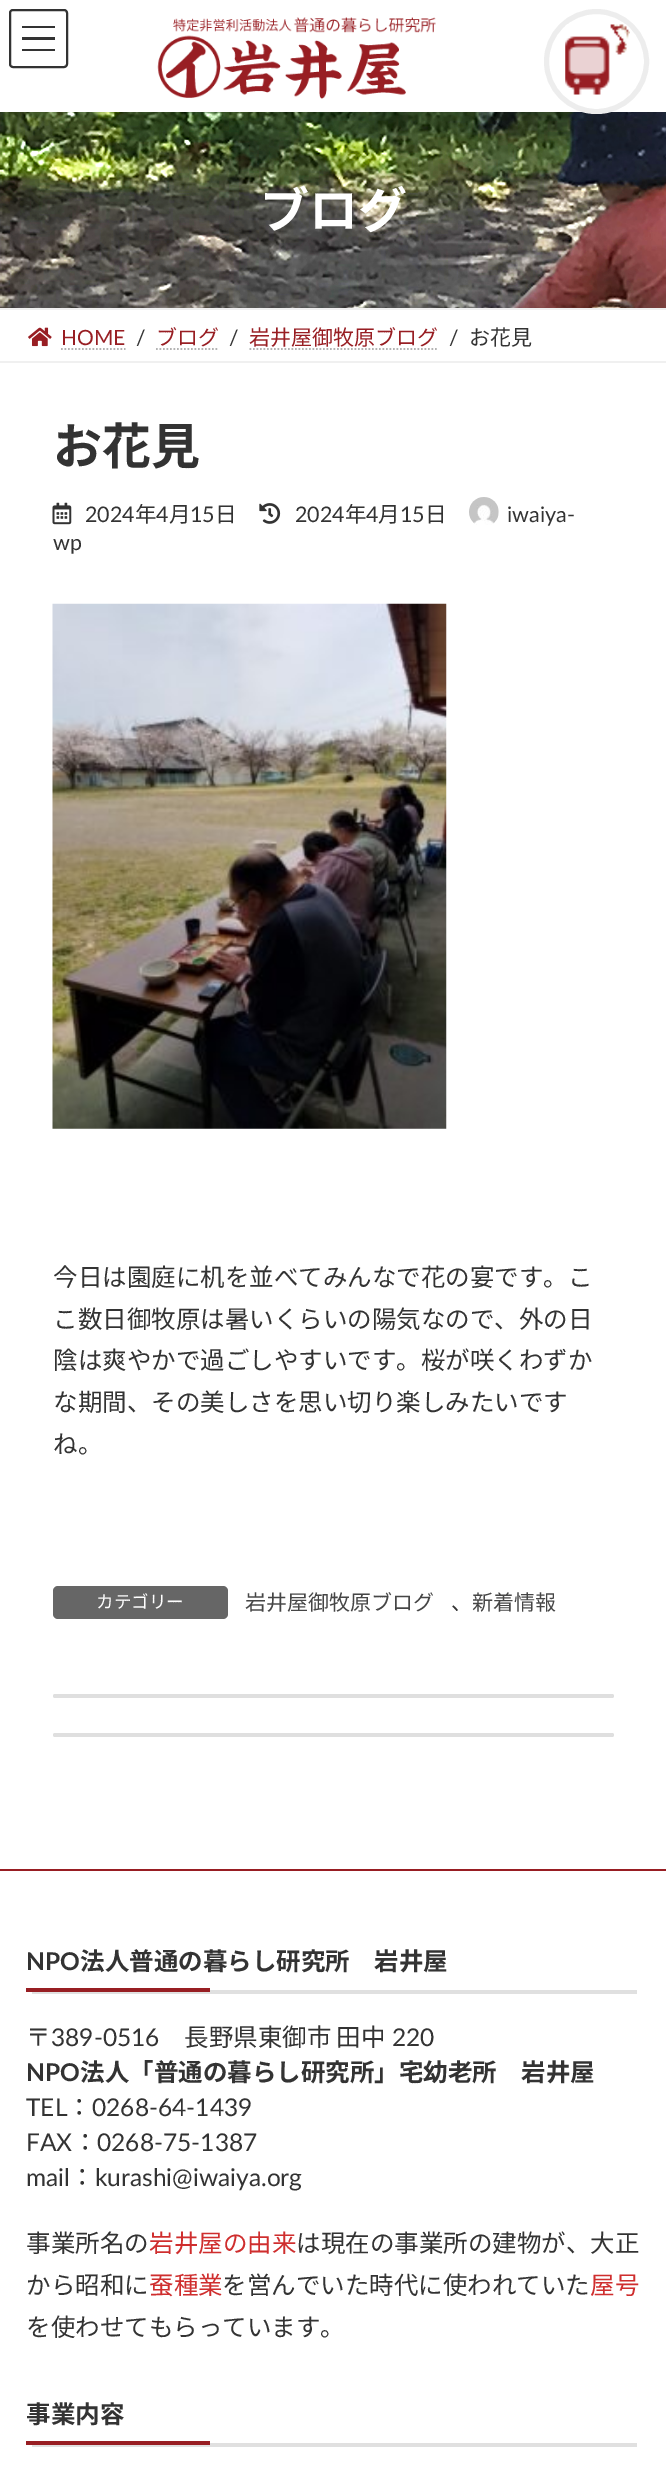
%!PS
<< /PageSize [666 2469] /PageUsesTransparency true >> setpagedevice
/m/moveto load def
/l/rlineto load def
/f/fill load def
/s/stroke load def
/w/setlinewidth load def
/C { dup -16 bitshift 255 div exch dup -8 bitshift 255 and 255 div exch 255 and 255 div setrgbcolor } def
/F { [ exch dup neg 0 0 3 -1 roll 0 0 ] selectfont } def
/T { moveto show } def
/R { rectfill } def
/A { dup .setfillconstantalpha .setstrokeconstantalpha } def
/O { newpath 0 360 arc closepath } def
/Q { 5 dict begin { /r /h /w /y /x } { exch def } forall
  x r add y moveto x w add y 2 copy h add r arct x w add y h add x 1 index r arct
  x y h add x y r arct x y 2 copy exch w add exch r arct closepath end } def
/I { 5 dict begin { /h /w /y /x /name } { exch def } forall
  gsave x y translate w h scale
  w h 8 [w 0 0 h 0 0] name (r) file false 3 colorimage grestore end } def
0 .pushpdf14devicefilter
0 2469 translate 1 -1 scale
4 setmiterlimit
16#FFFFFF C
0 0 666 2469 R
16#333333 C
22 26 33 2 R
22 37 33 3 R
22 49 33 2 R
2 w
10 10 57 57 3 Q s
(1.rgb) 157 17 279 82 I
(3.rgb) 0 112 666 196 I
16#FFFFFF C
596.5 61.5 52.5 O f
0.07 A
16#000000 C
5 w
596.5 61.5 50 O s
1 A
(2.rgb) 565 24 65 71 I
/NotoSansJP-Bold 49 F
16#FFFFFF C
(ブログ) 260 228 T
16#F0F0F0 C
0 308 666 2 R
0 361 666 2 R
(4.rgb) 28 327 24 20 I
/Lato-Regular 21 F
16#981E23 C
(HOME) 61 345 T
16#B3B3B3 C
1.8 w
[1.75 1.75] 0 setdash
61 349 m 64.5 0 l s
16#333333 C
(/) 136 345 T
/NotoSansJP-Regular 21 F
16#981E23 C
(ブログ) 156 345 T
16#B3B3B3 C
156 349 m 63 0 l s
/Lato-Regular 21 F
16#333333 C
(/) 229 345 T
/NotoSansJP-Regular 21 F
16#981E23 C
(岩井屋御牧原ブログ) 249 345 T
16#B3B3B3 C
249.5 349 m 189 0 l s
/Lato-Regular 21 F
16#333333 C
(/) 449 345 T
/NotoSansJP-Regular 21 F
(お花見) 469 345 T
/NotoSansJP-Bold 49 F
(お花見) 53 464 T
(5.rgb) 52 502 20 23 I
/Lato-Regular 21.5 F
(2024) 85 522 T
/NotoSansJP-Regular 21.5 F
(年) 135 522 T
/Lato-Regular 21.5 F
(4) 156 522 T
/NotoSansJP-Regular 21.5 F
(月) 169 522 T
/Lato-Regular 21.5 F
(15) 190 522 T
/NotoSansJP-Regular 21.5 F
(日) 215 522 T
(6.rgb) 259 503 22 21 I
/Lato-Regular 21.5 F
(2024) 295 522 T
/NotoSansJP-Regular 21.5 F
(年) 345 522 T
/Lato-Regular 21.5 F
(4) 366 522 T
/NotoSansJP-Regular 21.5 F
(月) 378 522 T
/Lato-Regular 21.5 F
(15) 400 522 T
/NotoSansJP-Regular 21.5 F
(日) 425 522 T
(7.rgb) 469 497 30 28 I
/Lato-Regular 21.5 F
(iwaiya-) 507 522 T
(wp) 53 550 T
(8.rgb) 52 603 395 526 I
/NotoSansJP-Regular 24.5 F
(今日は園庭に机を並べてみんなで花の宴です。こ) 53 1286 T
(こ数日御牧原は暑いくらいの陽気なので、外の日) 53 1328 T
(陰は爽やかで過ごしやすいです。桜が咲くわずか) 53 1369 T
(な期間、その美しさを思い切り楽しみたいです) 53 1411 T
(ね。) 53 1453 T
16#666666 C
53 1586 175 33 5 Q f
/NotoSansJP-Regular 17.5 F
16#FFFFFF C
(カテゴリー) 96 1608 T
/NotoSansJP-Regular 21 F
16#464646 C
(岩井屋御牧原ブログ) 245 1610 T
16#333333 C
(、) 451 1610 T
16#464646 C
(新着情報) 472 1610 T
16#DFDFDF C
53 1694 561 4 2 Q f
53 1733 561 4 2 Q f
16#981E23 C
0 1869 666 2 R
16#E0E0E0 C
32 1990 605 4 R
/Lato-Bold 24.5 F
16#333333 C
(NPO) 26 1970 T
/NotoSansJP-Bold 24.5 F
(法人普通の暮らし研究所　岩井屋) 80 1970 T
16#981E23 C
26 1988 184 4 R
/NotoSansJP-Regular 24.5 F
16#333333 C
(〒) 26 2046 T
/Lato-Regular 24.5 F
(389-0516) 51 2046 T
/NotoSansJP-Regular 24.5 F
(長野県東御市 田中) 184 2046 T
/Lato-Regular 24.5 F
(220) 392 2046 T
/Lato-Bold 24.5 F
(NPO) 26 2081 T
/NotoSansJP-Bold 24.5 F
(法人「普通の暮らし研究所」宅幼老所　岩井屋) 80 2081 T
/Lato-Regular 24.5 F
(TEL) 26 2116 T
/NotoSansJP-Regular 24.5 F
(：) 67 2116 T
/Lato-Regular 24.5 F
(0268-64-1439) 92 2116 T
(FAX) 26 2151 T
/NotoSansJP-Regular 24.5 F
(：) 73 2151 T
/Lato-Regular 24.5 F
(0268-75-1387) 97 2151 T
(mail) 26 2186 T
/NotoSansJP-Regular 24.5 F
(：) 70 2186 T
/Lato-Regular 24.5 F
(kurashi@iwaiya.org) 95 2186 T
/NotoSansJP-Regular 24.5 F
(事業所名の) 26 2252 T
16#CF2E2E C
(岩井屋の由来) 149 2252 T
16#333333 C
(は現在の事業所の建物が、大正) 296 2252 T
(から昭和に) 26 2294 T
16#CF2E2E C
(蚕種業) 149 2294 T
16#333333 C
(を営んでいた時代に使われていた) 222 2294 T
16#CF2E2E C
(屋号) 590 2294 T
16#333333 C
(を使わせてもらっています。) 26 2336 T
16#E0E0E0 C
32 2443 605 4 R
/NotoSansJP-Bold 24.5 F
16#333333 C
(事業内容) 26 2423 T
16#981E23 C
26 2441 184 4 R
.poppdf14devicefilter showpage
